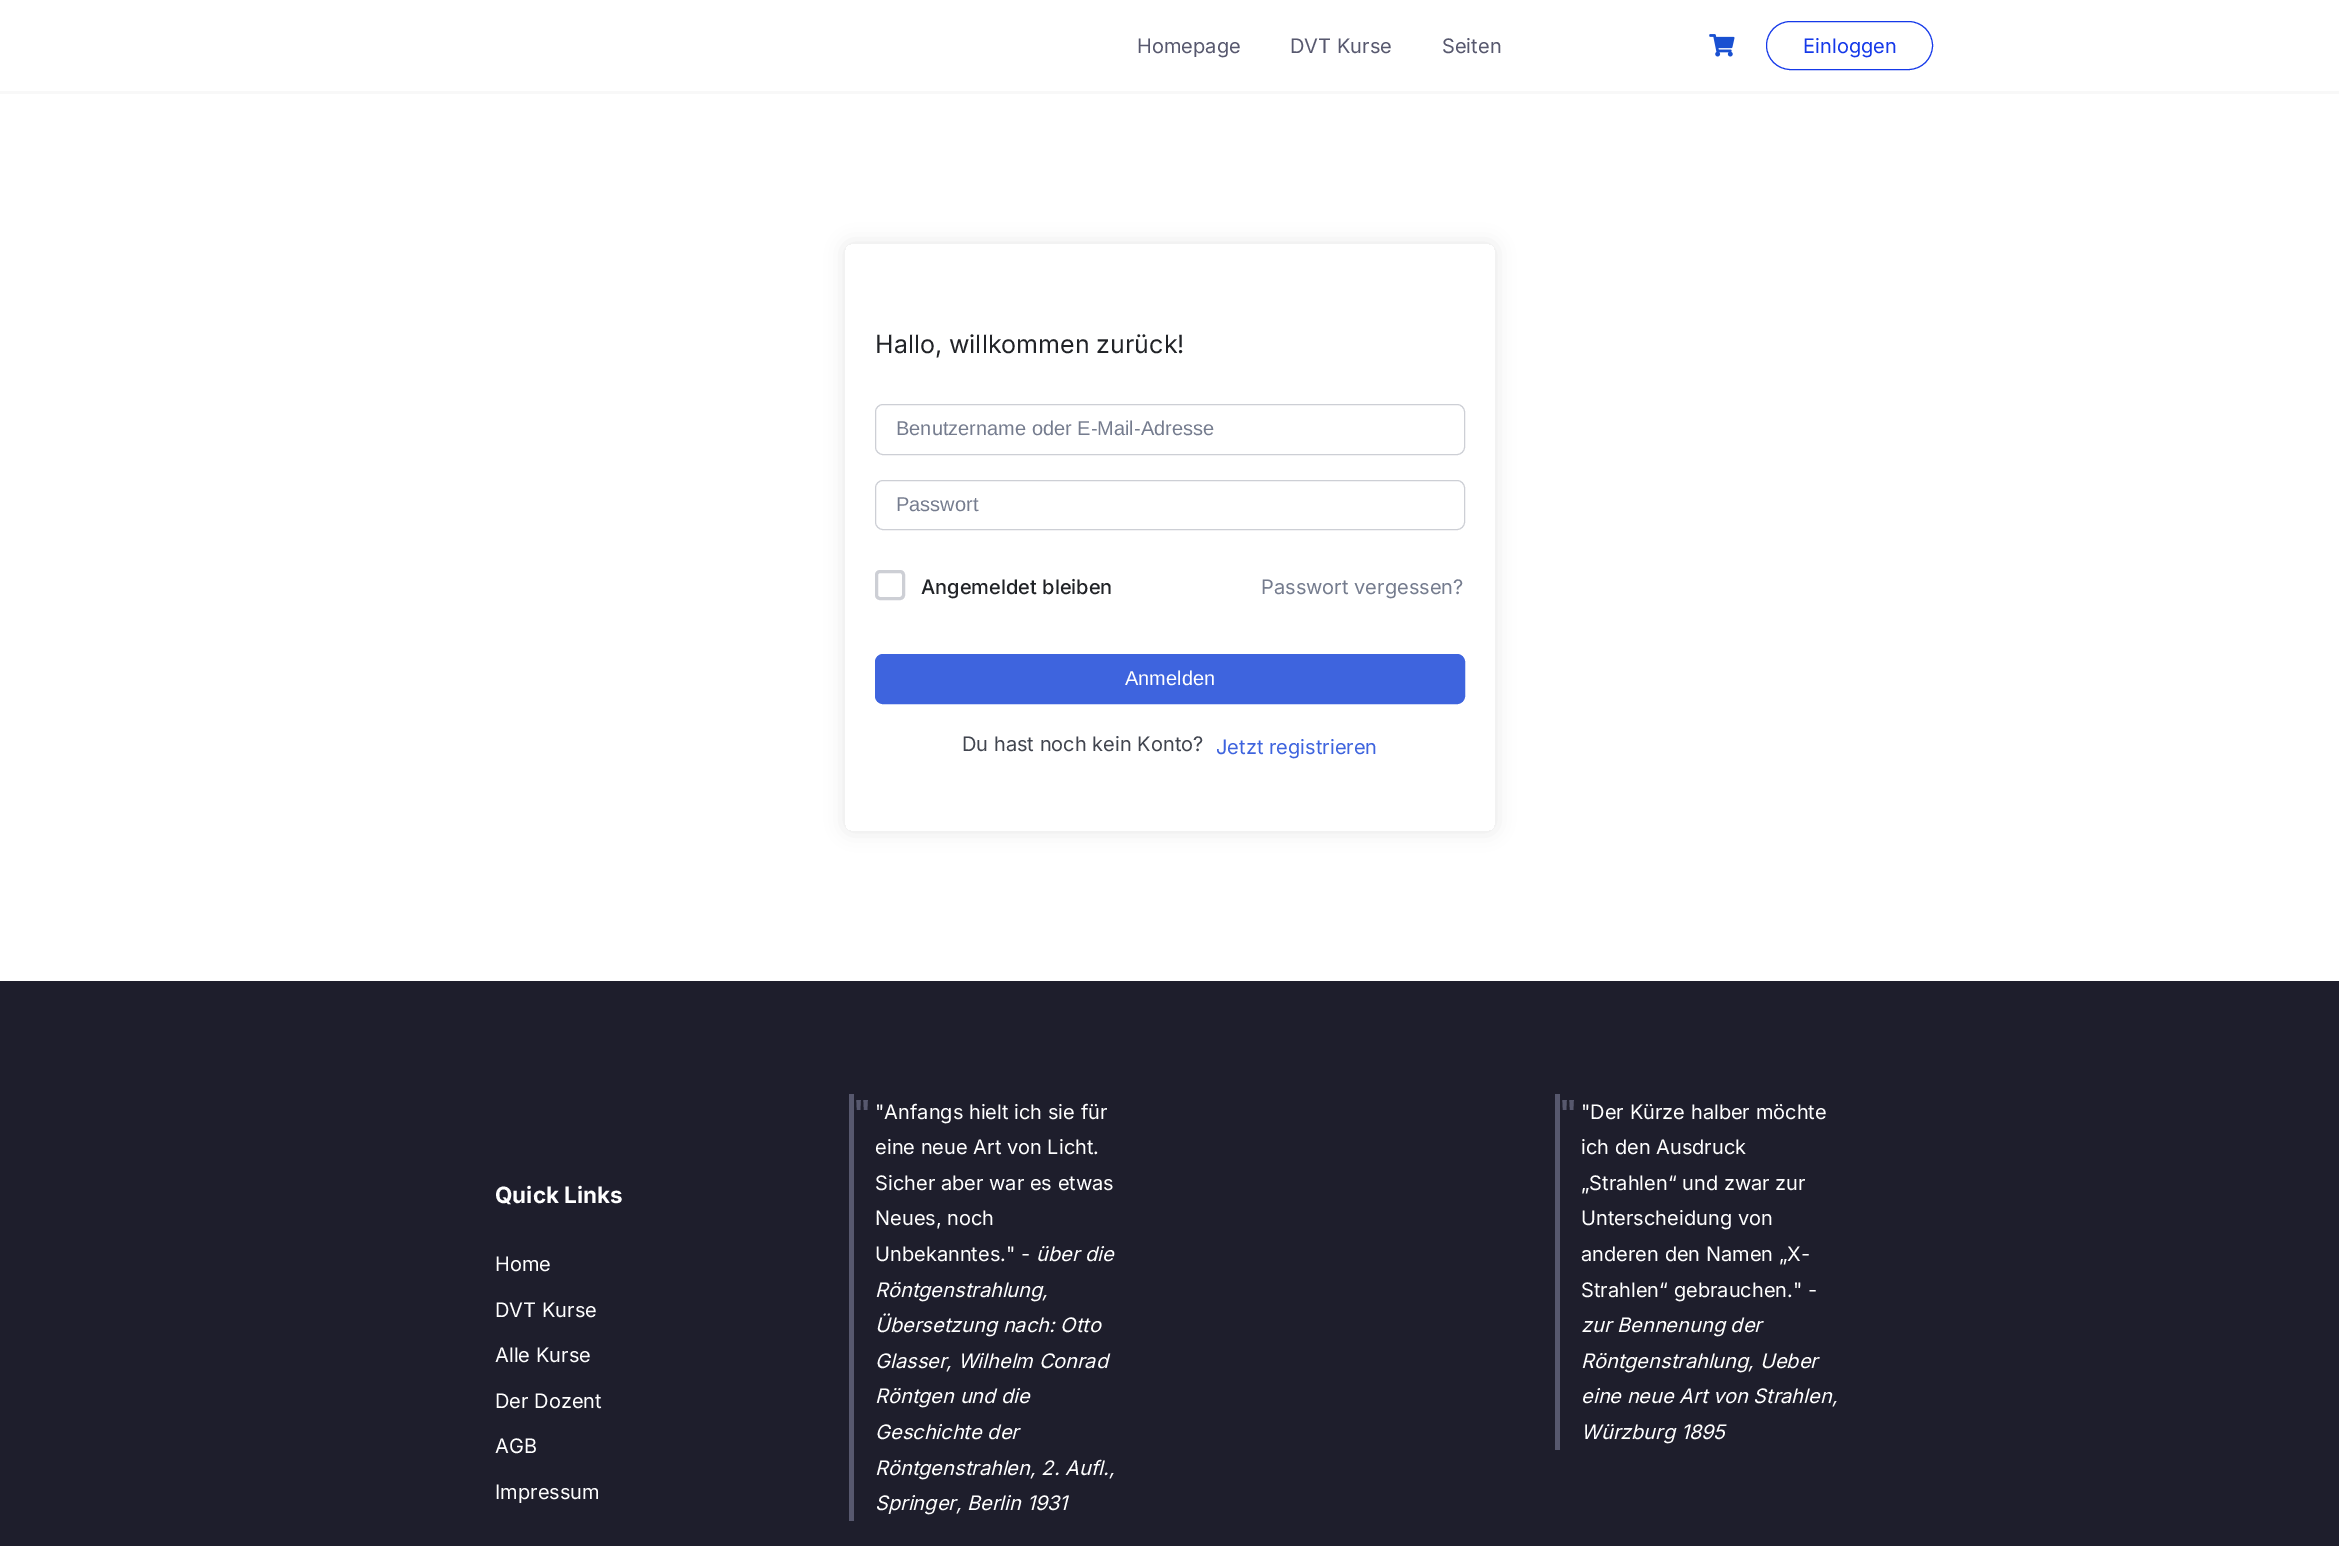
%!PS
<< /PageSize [2339 1546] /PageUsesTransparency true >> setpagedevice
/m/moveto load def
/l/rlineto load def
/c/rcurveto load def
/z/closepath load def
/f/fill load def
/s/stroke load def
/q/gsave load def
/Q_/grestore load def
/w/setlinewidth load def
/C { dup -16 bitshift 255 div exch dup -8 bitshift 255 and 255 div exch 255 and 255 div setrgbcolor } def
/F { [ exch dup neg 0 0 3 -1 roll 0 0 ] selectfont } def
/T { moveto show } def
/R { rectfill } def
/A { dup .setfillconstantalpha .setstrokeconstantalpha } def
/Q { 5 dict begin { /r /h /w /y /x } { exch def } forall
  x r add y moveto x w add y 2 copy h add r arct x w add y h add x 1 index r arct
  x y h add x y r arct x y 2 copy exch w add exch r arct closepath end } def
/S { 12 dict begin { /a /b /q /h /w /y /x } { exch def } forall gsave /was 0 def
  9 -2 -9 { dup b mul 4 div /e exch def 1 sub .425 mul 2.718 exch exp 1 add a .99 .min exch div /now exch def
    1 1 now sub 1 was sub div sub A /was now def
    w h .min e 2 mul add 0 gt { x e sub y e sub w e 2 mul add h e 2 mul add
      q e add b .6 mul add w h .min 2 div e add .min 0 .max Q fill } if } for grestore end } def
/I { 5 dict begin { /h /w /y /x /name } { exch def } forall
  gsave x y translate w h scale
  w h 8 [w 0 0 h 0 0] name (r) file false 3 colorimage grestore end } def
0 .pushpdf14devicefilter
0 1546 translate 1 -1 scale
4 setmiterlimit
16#FFFFFF C
0 0 2339 1546 R
16#F8F8F8 C
0 91 2339 3 R
/Inter-Regular 20 F
16#57586E C
(Homepage) 1137 53 T
(DVT Kurse) 1290 53 T
(Seiten) 1442 53 T
(1.rgb) 1709 34 26 23 I
16#1539E9 C
1766.5 21.5 166 48 24 Q s
(Einloggen) 1803 53 T
q
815 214 m 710 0 l 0 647 l -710 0 l z 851 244 m 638 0 l 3.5 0 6 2.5 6 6 c 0 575 l 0 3.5 -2.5 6 -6 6 c -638 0 l -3.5 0 -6 -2.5 -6 -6 c 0 -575 l 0 -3.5 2.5 -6 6 -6 c z eoclip newpath
16#000000 C
845 244 650 587 6 9.5 .1 S
Q_
/Inter-Regular 25 F
16#212327 C
(Hallo, willkommen zurück!) 875 353 T
16#CDCFD5 C
875.5 404.5 589 50 7.5 Q s
/LiberationSans-Regular 20 F
16#757C8E C
(Benutzername oder E-Mail-Adresse) 896 435 T
16#CDCFD5 C
875.5 480.5 589 49 7.5 Q s
16#757C8E C
(Passwort) 896 511 T
16#CDCFD5 C
3 w
876.5 571.5 27 27 3.5 Q s
/Inter-Medium 20 F
16#212327 C
(Angemeldet bleiben) 921 594 T
/Inter-Regular 20 F
16#757C8E C
(Passwort vergessen?) 1261 594 T
16#3E64DE C
875.5 654.5 589 49 7.5 Q q f Q_
1 w
s
/LiberationSans-Regular 20 F
16#FFFFFF C
(Anmelden) 1125 685 T
/Inter-Regular 20 F
16#41454F C
(Du hast noch kein Konto?) 962 751 T
16#3E64DE C
(Jetzt registrieren) 1216 754 T
16#1E1E2C C
0 981 2339 565 R
/Inter-Bold 22.5 F
16#FFFFFF C
(Quick Links) 495 1203 T
/Inter-Regular 20 F
(Home) 495 1271 T
(DVT Kurse) 495 1317 T
(Alle Kurse) 495 1362 T
(Der Dozent) 495 1408 T
(AGB) 495 1453 T
(Impressum) 495 1499 T
16#57586E C
849 1094 5 427 R
/Inter-Bold 33 F
(") 853 1124 T
/Inter-Regular 20 F
16#FFFFFF C
("Anfangs hielt ich sie für) 875 1119 T
(eine neue Art von Licht.) 875 1154 T
(Sicher aber war es etwas) 875 1190 T
(Neues, noch) 875 1225 T
(Unbekanntes." -) 875 1261 T
/Inter-Italic 20 F
(über die) 1036 1261 T
(Röntgenstrahlung,) 875 1297 T
(Übersetzung nach: Otto) 875 1332 T
(Glasser, Wilhelm Conrad) 875 1368 T
(Röntgen und die) 875 1403 T
(Geschichte der) 875 1439 T
(Röntgenstrahlen, 2. Aufl.,) 875 1475 T
(Springer, Berlin 1931) 875 1510 T
16#57586E C
1555 1094 5 356 R
/Inter-Bold 33 F
(") 1559 1124 T
/Inter-Regular 20 F
16#FFFFFF C
("Der Kürze halber möchte) 1581 1119 T
(ich den Ausdruck) 1581 1154 T
(„Strahlen“ und zwar zur) 1581 1190 T
(Unterscheidung von) 1581 1225 T
(anderen den Namen „X-) 1581 1261 T
(Strahlen“ gebrauchen." -) 1581 1297 T
/Inter-Italic 20 F
(zur Bennenung der) 1581 1332 T
(Röntgenstrahlung, Ueber) 1581 1368 T
(eine neue Art von Strahlen,) 1581 1403 T
(Würzburg 1895) 1581 1439 T
.poppdf14devicefilter showpage
